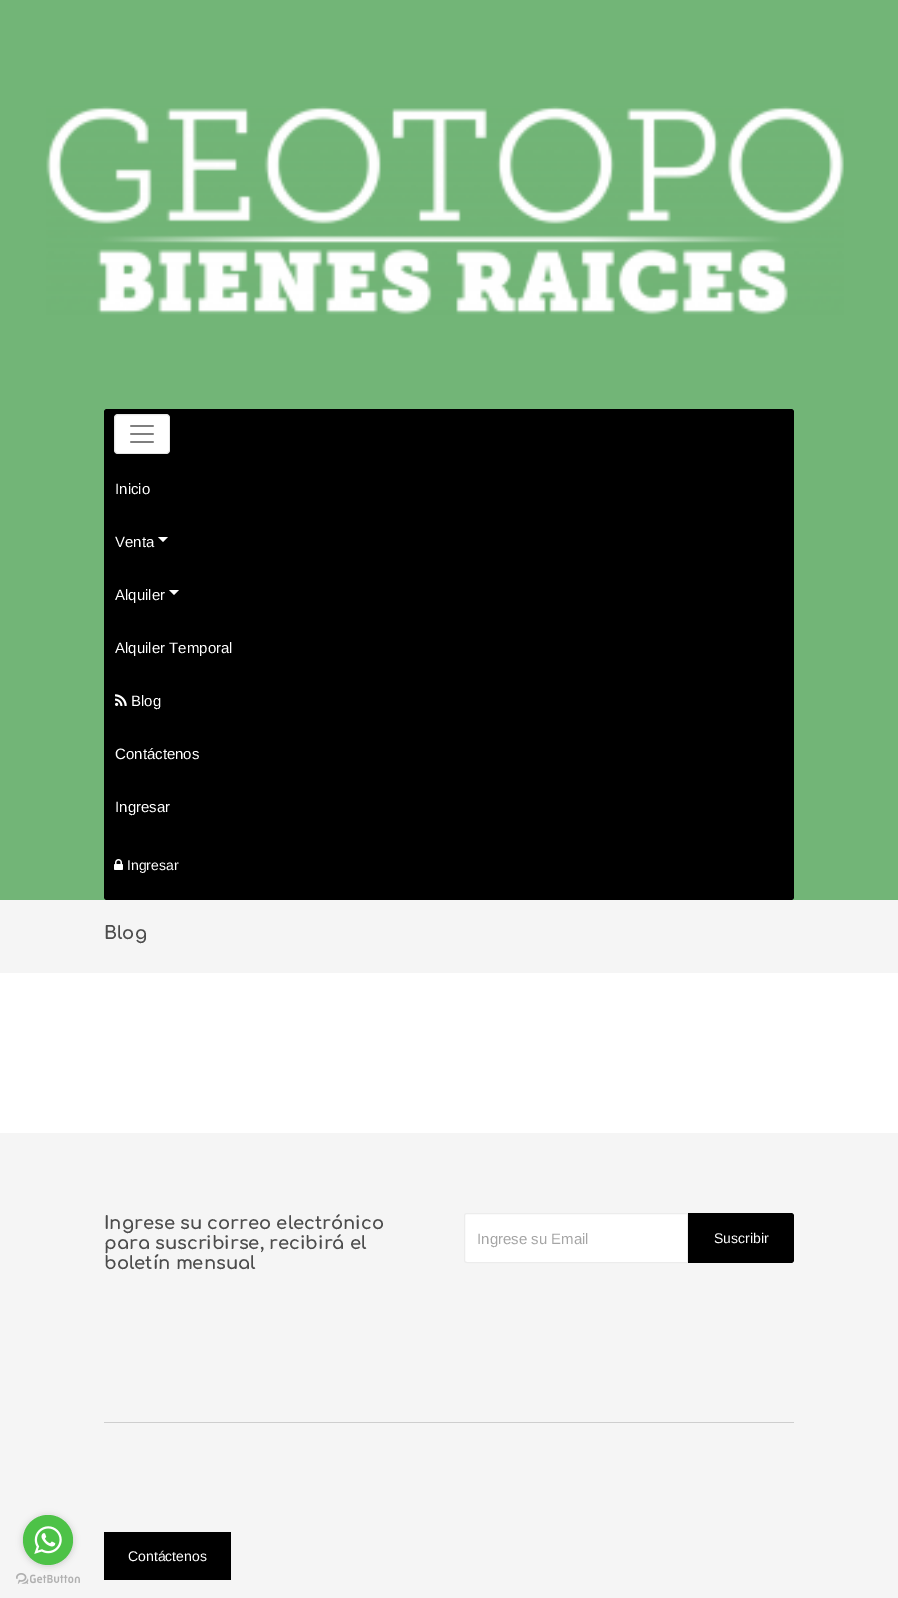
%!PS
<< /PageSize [898 1598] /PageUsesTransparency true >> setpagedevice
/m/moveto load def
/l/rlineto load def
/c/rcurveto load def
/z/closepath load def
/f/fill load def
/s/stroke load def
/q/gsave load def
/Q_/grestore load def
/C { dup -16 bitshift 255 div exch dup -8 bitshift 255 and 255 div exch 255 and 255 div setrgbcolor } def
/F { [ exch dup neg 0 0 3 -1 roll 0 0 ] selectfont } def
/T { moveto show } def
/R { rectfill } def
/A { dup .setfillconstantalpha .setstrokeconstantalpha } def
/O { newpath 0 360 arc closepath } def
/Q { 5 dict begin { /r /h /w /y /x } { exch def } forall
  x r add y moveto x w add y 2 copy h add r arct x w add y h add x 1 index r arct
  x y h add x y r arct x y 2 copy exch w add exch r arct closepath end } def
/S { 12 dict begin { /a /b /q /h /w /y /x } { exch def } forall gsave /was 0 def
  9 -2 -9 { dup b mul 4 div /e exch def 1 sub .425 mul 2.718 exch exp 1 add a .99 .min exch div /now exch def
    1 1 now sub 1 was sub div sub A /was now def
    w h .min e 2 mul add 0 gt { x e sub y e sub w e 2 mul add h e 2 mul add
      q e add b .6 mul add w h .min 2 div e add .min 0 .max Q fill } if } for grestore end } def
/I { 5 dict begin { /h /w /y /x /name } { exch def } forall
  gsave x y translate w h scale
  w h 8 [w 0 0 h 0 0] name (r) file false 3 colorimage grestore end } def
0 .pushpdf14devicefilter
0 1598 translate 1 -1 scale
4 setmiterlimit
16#FFFFFF C
0 0 898 1598 R
16#72B577 C
0 0 898 900 R
(1.rgb) 46 106 798 209 I
16#000000 C
104 409 690 491 3 Q f
16#FFFFFF C
114 414 56 40 4 Q f
0.1 A
16#000000 C
114.5 414.5 55 39 3.5 Q s
1 A
(2.rgb) 130 425 24 18 I
/LiberationSans-Regular 15 F
16#FFFFFF C
(Inicio) 115 494 T
(Venta) 115 547 T
158 537 m 10 0 l -5 5 l z f
(Alquiler) 115 600 T
169 590 m 10 0 l -5 5 l z f
(Alquiler Temporal) 115 653 T
(3.rgb) 115 694 12 12 I
(Blog) 131 706 T
(Contáctenos) 115 759 T
(Ingresar) 115 812 T
(4.rgb) 114 859 9 11 I
/LiberationSans-Regular 14 F
(Ingresar) 127 870 T
16#F5F5F5 C
0 900 898 73 R
/Comfortaa-Bold 18 F
16#4C4C4C C
(Blog) 104 939 T
16#F5F5F5 C
0 1133 898 465 R
(6.rgb) 16 1573 64 11 I
16#888888 C
23 1516 50 50 25 3.5 .4 S
16#4DC247 C
48 1540 25 O f
(5.rgb) 34 1526 28 28 I
16#CECECE C
104 1422 690 1 R
16#4C4C4C C
(Ingrese su correo electrónico) 104 1229 T
(para suscribirse, recibirá el) 104 1249 T
(boletín mensual) 104 1269 T
16#FFFFFF C
467 1213.5 m 220.5 0 l 0 49 l -220.5 0 l -1.5 0 -2.5 -1 -2.5 -2.5 c 0 -44 l 0 -1.5 1 -2.5 2.5 -2.5 c z q f Q_
16#ECECEC C
s
/LiberationSans-Regular 15 F
16#A5A5A5 C
(Ingrese su Email) 477 1244 T
16#000000 C
688 1213 m 103 0 l 1.5 0 3 1.5 3 3 c 0 44 l 0 1.5 -1.5 3 -3 3 c -103 0 l z f
/LiberationSans-Regular 14 F
16#FFFFFF C
(Suscribir) 714 1243 T
16#000000 C
104 1532 127 48 R
16#FFFFFF C
(Contáctenos) 128 1561 T
.poppdf14devicefilter showpage
